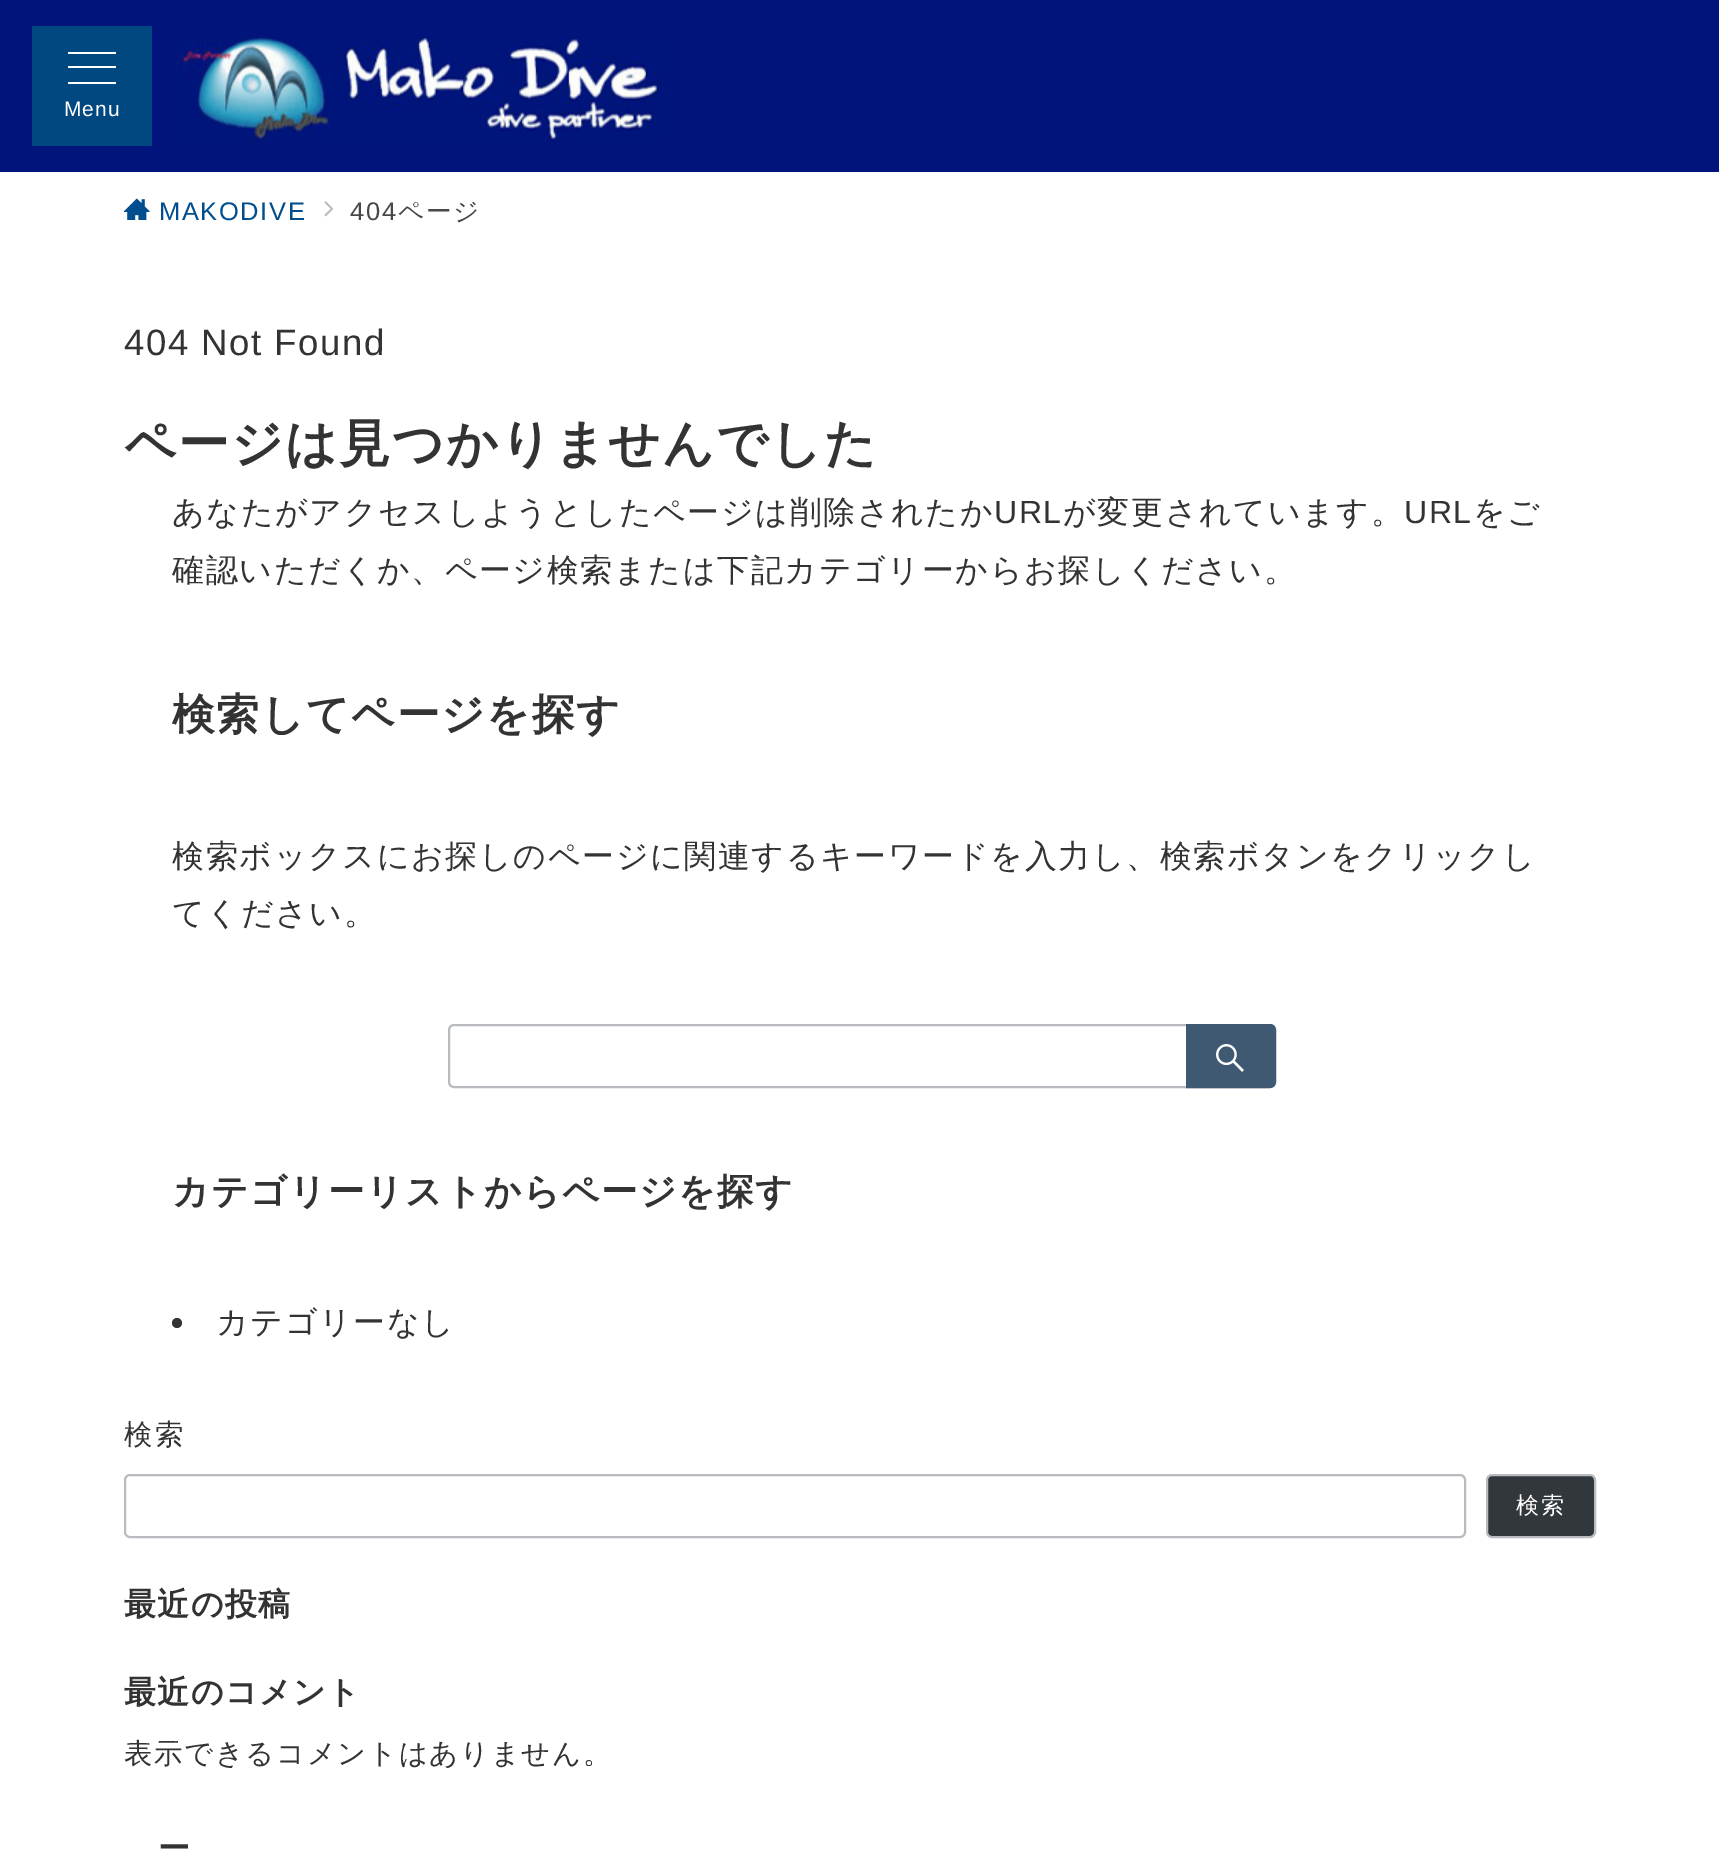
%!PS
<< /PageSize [1719 1849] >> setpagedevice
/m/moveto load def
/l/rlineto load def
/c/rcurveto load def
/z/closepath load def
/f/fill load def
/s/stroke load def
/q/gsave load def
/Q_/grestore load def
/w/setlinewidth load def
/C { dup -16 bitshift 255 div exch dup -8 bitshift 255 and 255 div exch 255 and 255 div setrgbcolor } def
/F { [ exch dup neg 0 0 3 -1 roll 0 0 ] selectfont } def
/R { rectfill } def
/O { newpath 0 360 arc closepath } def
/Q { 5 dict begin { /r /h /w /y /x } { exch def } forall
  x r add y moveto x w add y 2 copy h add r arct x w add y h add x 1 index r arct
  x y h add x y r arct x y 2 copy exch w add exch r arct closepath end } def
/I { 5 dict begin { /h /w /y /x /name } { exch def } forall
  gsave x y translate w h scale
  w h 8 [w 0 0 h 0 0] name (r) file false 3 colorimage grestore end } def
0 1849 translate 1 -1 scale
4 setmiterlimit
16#FFFFFF C
0 0 1719 1849 R
16#00147C C
0 0 1719 172 R
16#00487F C
32 26 120 120 R
16#FFFFFF C
68 52 48 2 1 Q f
68 66 48 2 1 Q f
68 82 48 2 1 Q f
/LiberationSans-Regular 21 F
64 116 m 1 0 (Menu) ashow
(1.rgb) 176 37 493 105 I
(2.rgb) 124 198 26 22 I
/LiberationSans-Regular 25.5 F
16#004E8E C
159 220 m 1.6 0 (MAKODIVE) ashow
(3.rgb) 324 201 9 16 I
16#484848 C
350 220 m 1.6 0 (404) ashow
/WenQuanYiZenHei-Medium 25.5 F
398 220 m 1.6 0 (ページ) ashow
/LiberationSans-Regular 36.6 F
16#333333 C
124 355 m 1.5 0 (404 Not Found) ashow
/WenQuanYiZenHei-Bold 51.25 F
124 461 m 1.6 0 (ページは見つかりませんでした) ashow
/WenQuanYiZenHei-Medium 32 F
172 523 m 1.6 0 (あなたがアクセスしようとしたページは削除されたか) ashow
/LiberationSans-Regular 32 F
994 523 m 1.6 0 (URL) ashow
/WenQuanYiZenHei-Medium 32 F
1063 523 m 1.6 0 (が変更されています。) ashow
/LiberationSans-Regular 32 F
1404 523 m 1.6 0 (URL) ashow
/WenQuanYiZenHei-Medium 32 F
1473 523 m 1.6 0 (をご) ashow
172 581 m 1.6 0 (確認いただくか、ページ検索または下記カテゴリーからお探しください。) ashow
/WenQuanYiZenHei-Bold 42.75 F
172 729 m 1.6 0 (検索してページを探す) ashow
/WenQuanYiZenHei-Medium 32 F
172 867 m 1.6 0 (検索ボックスにお探しのページに関連するキーワードを入力し、検索ボタンをクリックし) ashow
172 924 m 1.6 0 (てください。) ashow
16#B8BCC0 C
2 w
449 1025 822 62 5 Q s
16#3F5973 C
1187 1025 m 83 0 l 3 0 5 2 5 5 c 0 52 l 0 3 -2 5 -5 5 c -83 0 l z q f Q_
s
(4.rgb) 1216 1044 28 28 I
/WenQuanYiZenHei-Bold 36.6 F
16#333333 C
172 1204 m 1.6 0 (カテゴリーリストからページを探す) ashow
177 1323 5 O f
/WenQuanYiZenHei-Medium 32 F
216 1333 m 1.6 0 (カテゴリーなし) ashow
/WenQuanYiZenHei-Medium 28.4 F
124 1444 m 3 0 (検索) ashow
16#B8BCC0 C
125 1475 1340 62 5 Q s
16#32373C C
1487 1475 108 62 5 Q q f Q_
16#B8BCC0 C
s
/WenQuanYiZenHei-Medium 23 F
16#FFFFFF C
1516 1513 m 2 0 (検索) ashow
/WenQuanYiZenHei-Bold 32 F
16#333333 C
124 1615 m 1.25 0 (最近の投稿) ashow
124 1703 m 1.25 0 (最近のコメント) ashow
/WenQuanYiZenHei-Medium 28.4 F
124 1763 m 1.6 0 (表示できるコメントはありません。) ashow
/WenQuanYiZenHei-Bold 32 F
158 1859 m 1.25 0 (ー) ashow
showpage
